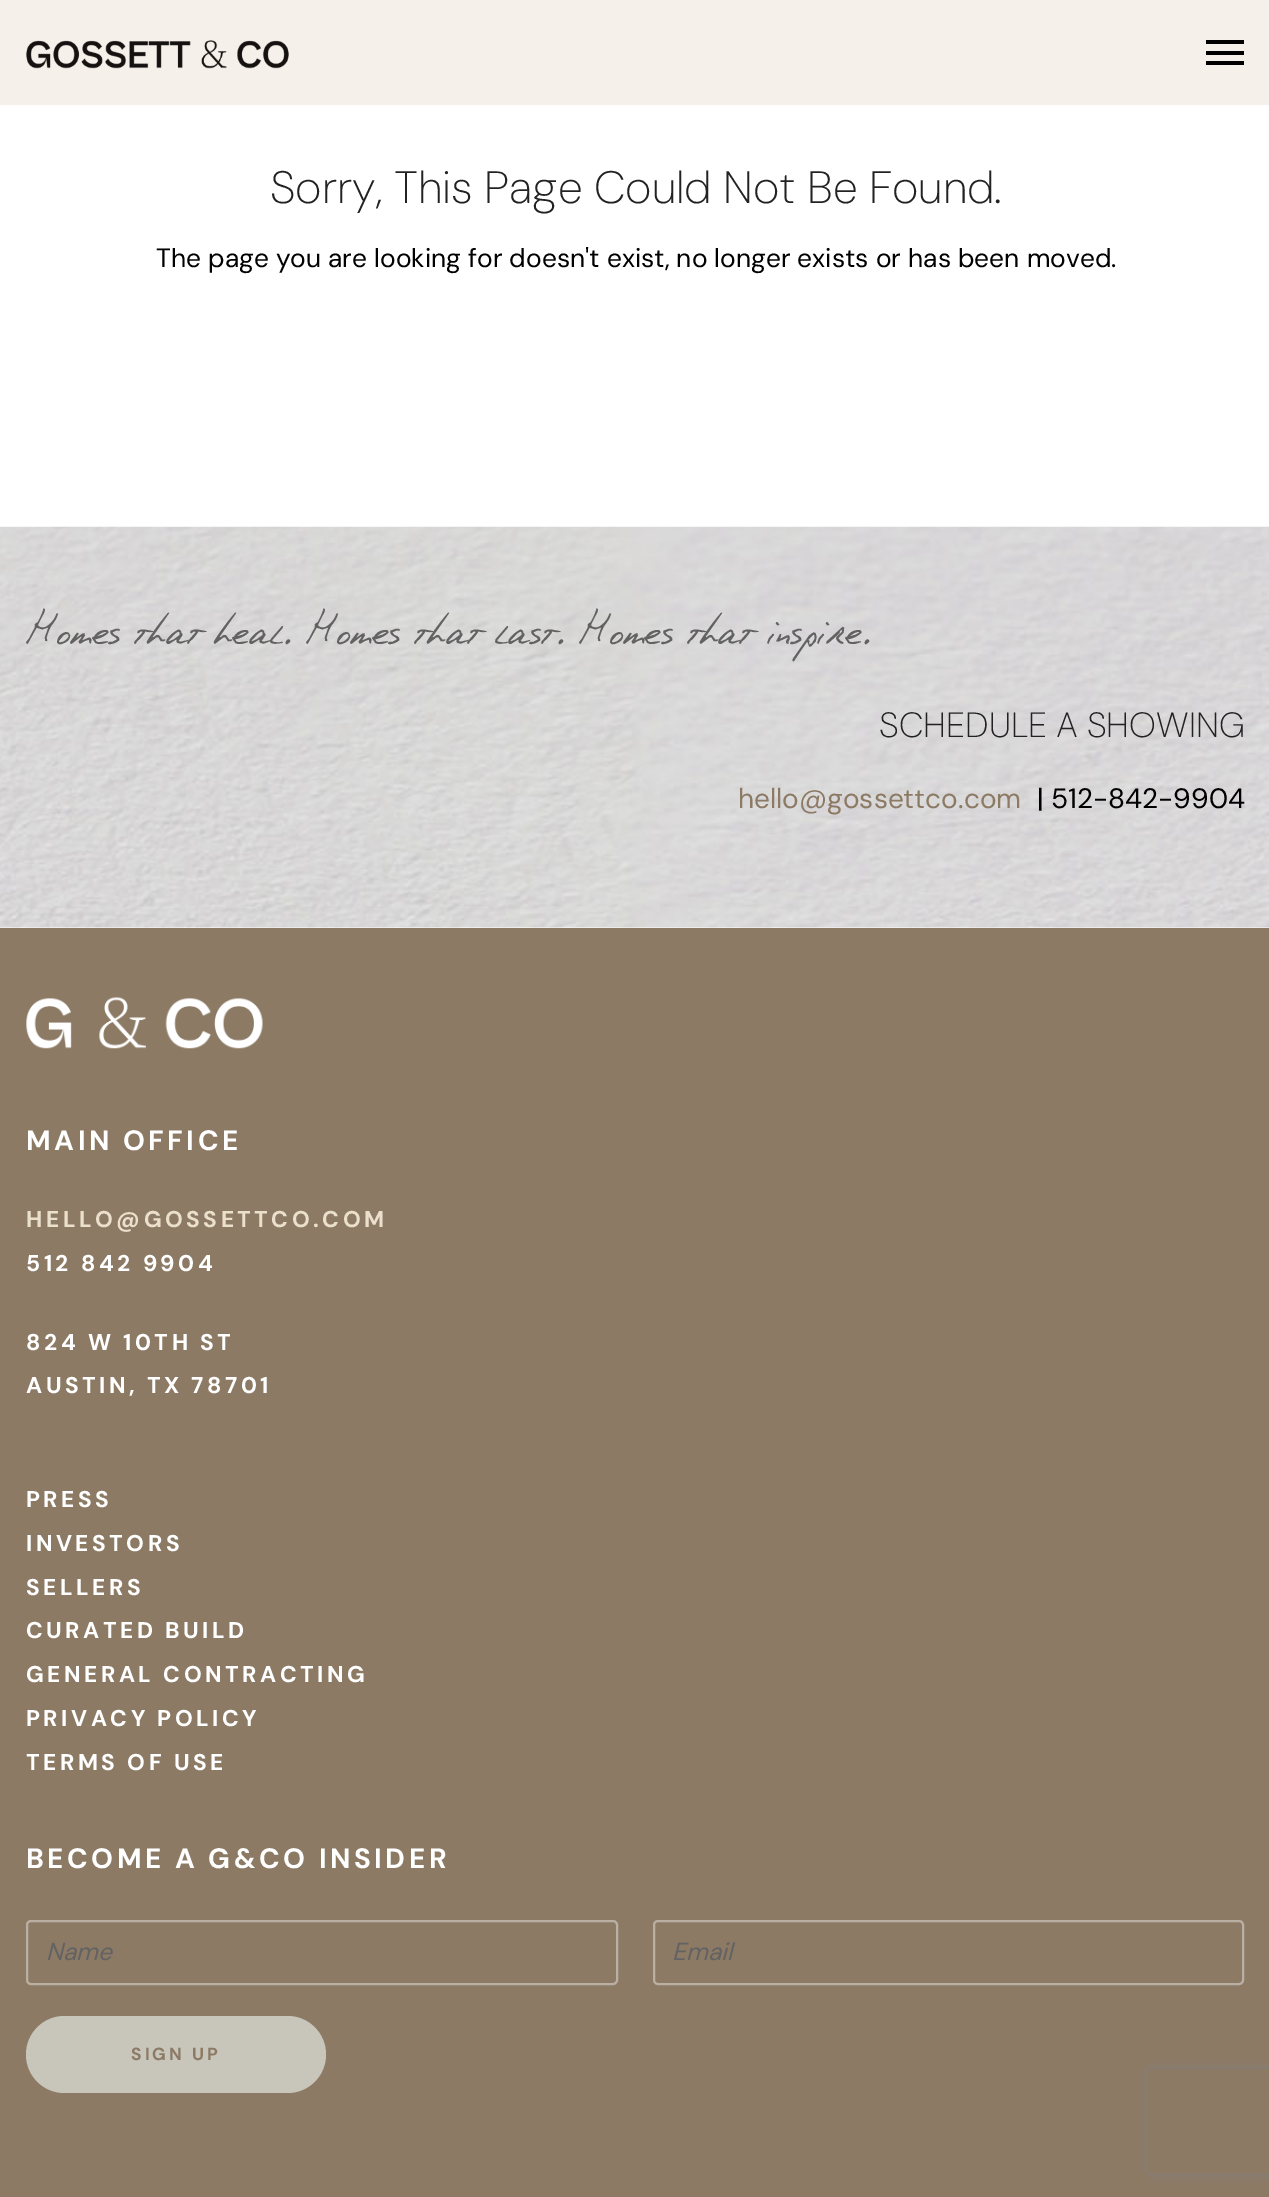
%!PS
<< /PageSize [1269 2197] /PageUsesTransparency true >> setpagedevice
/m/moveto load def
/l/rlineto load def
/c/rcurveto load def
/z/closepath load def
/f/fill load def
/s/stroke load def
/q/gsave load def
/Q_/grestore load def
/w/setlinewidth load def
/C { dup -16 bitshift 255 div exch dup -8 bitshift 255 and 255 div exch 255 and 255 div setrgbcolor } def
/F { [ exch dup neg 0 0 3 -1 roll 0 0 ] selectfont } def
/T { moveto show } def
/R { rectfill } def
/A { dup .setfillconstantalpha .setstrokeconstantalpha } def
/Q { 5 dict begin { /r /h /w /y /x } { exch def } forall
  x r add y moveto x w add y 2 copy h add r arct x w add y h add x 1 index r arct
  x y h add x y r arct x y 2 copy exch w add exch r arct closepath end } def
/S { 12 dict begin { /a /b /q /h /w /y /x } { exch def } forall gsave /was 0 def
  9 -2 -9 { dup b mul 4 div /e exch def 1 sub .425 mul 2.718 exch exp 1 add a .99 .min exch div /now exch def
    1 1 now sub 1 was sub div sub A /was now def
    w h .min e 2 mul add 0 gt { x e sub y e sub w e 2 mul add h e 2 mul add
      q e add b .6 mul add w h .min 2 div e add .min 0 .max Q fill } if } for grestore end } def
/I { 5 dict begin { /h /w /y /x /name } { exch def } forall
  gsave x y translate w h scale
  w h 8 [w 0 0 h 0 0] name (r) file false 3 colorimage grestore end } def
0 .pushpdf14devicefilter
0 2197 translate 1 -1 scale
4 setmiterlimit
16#FFFFFF C
0 0 1269 2197 R
16#F5F1EA C
0 0 1269 105 R
(1.rgb) 26 40 263 29 I
16#000000 C
1206 51 38 4 R
1206 40 38 4 R
1206 61 38 4 R
/DMSans-ExtraLight 45.25 F
16#222222 C
(Sorry, This Page Could Not Be Found.) 270 203 T
/DMSans-Regular 26.4 F
16#000000 C
(The page you are looking for doesn't exist, no longer exists or has been moved.) 156 267 T
(2.rgb) 0 526 1269 402 I
/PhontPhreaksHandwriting-Regular 45.5 F
16#626262 C
(Homes that heal. Homes that last. Homes that inspire.) 26 644 T
/DMSans-ExtraLight 35 F
16#222222 C
(SCHEDULE A SHOWING) 879 737 T
/DMSans-Regular 28 F
16#8C7A65 C
(hello@gossettco.com) 738 808 T
16#000000 C
(| 512-842-9904) 1037 808 T
16#8C7A65 C
0 928 1269 1269 R
(3.rgb) 26 997 237 52 I
/DMSans-Bold 28 F
16#FFFFFF C
26 1150 m 3.5 0 (MAIN OFFICE) ashow
/DMSans-Bold 22.75 F
16#EBE0CC C
26 1227 m 3.5 0 (HELLO@GOSSETTCO.COM) ashow
16#FFFFFF C
26 1271 m 3.5 0 (512 842 9904) ashow
26 1350 m 3.5 0 (824 W 10TH ST) ashow
26 1393 m 3.5 0 (AUSTIN, TX 78701) ashow
26 1507 m 3.5 0 (PRESS) ashow
26 1551 m 3.5 0 (INVESTORS) ashow
26 1595 m 3.5 0 (SELLERS) ashow
26 1638 m 3.5 0 (CURATED BUILD) ashow
26 1682 m 3.5 0 (GENERAL CONTRACTING) ashow
26 1726 m 3.5 0 (PRIVACY POLICY) ashow
26 1770 m 3.5 0 (TERMS OF USE) ashow
/DMSans-Bold 28 F
26 1868 m 3.5 0 (BECOME A G&CO INSIDER) ashow
16#BAAFA3 C
2 w
27 1921 590 63 4 Q s
/DMSans-Italic 24.5 F
16#626262 C
(Name) 46 1960 T
16#BAAFA3 C
654 1921 589 63 4 Q s
16#626262 C
(Email) 672 1960 T
16#C8C5BA C
26 2016 300 77 38.5 Q f
/DMSans-Bold 17.5 F
16#8C7A65 C
131 2060 m 3 0 (SIGN UP) ashow
q
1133 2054 m 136 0 l 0 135 l -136 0 l z 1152 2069 m 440 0 l 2 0 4 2 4 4 c 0 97 l 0 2 -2 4 -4 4 c -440 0 l -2 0 -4 -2 -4 -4 c 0 -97 l 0 -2 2 -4 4 -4 c z eoclip newpath
16#808080 C
1148 2069 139 105 4 4.5 1 S
Q_
.poppdf14devicefilter showpage
